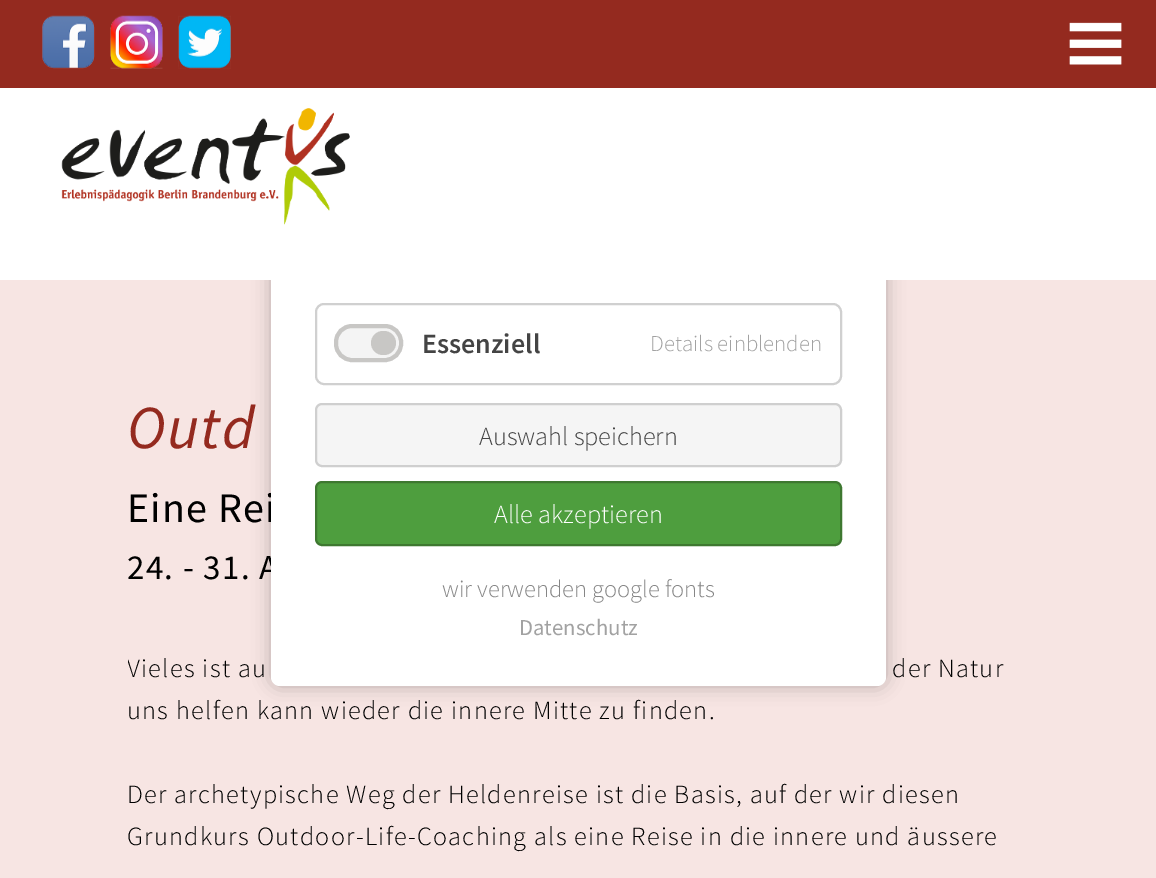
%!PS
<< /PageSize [1156 878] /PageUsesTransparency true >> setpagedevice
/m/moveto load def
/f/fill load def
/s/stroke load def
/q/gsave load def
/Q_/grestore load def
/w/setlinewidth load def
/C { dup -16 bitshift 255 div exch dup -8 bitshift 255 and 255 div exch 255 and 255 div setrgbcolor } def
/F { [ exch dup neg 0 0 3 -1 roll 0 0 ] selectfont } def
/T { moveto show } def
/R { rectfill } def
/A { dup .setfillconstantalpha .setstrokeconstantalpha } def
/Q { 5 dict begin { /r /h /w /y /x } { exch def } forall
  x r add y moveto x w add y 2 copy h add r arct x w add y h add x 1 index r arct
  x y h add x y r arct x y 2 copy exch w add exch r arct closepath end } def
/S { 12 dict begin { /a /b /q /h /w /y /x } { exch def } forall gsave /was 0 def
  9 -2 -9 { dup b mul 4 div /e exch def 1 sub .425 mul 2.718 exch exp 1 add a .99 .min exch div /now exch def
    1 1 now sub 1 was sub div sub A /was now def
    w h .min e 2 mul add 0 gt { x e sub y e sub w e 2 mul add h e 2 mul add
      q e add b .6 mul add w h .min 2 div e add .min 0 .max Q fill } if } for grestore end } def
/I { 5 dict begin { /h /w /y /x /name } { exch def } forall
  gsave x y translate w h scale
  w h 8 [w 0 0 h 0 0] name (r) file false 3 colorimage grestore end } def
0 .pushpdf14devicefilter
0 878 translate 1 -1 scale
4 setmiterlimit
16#F7E5E3 C
0 0 1156 878 R
16#000000 C
271 193 615 493 9 9 .25 S
/SourceSansPro-Regular 42 F
127 522 m 1.3 0 (Eine Rei) ashow
/SourceSansPro-Regular 35 F
127 579 m 1.3 0 (24. - 31. A) ashow
16#FFFFFF C
271 193 615 493 9 Q f
0 88 1156 192 R
(1.rgb) 61 108 289 117 I
16#942A1F C
0 0 1156 88 R
(2.rgb) 42 15 53 54 I
(3.rgb) 110 15 53 54 I
(4.rgb) 178 15 53 54 I
(5.rgb) 1069 22 53 43 I
16#D0D0D0 C
2 w
316 304 525 80 8 Q s
16#F4F4F4 C
336 326 65 34 16 Q q f Q_
16#C8C7C5 C
4 w
s
371 331 25 24 12 Q f
/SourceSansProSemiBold-SemiBold 28 F
16#444444 C
(Essenziell) 422 353 T
/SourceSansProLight-Light 22.75 F
16#A2A2A2 C
(Details einblenden) 650 351 T
16#F5F5F5 C
316 404 525 62 6 Q q f Q_
16#CFCFCF C
2 w
s
/SourceSansProLight-Light 26.25 F
16#444444 C
(Auswahl speichern) 479 445 T
16#4E9E3E C
316 482 525 63 6 Q q f Q_
16#3E7830 C
s
16#FFFFFF C
(Alle akzeptieren) 494 523 T
/SourceSansProLight-Light 24.5 F
16#868686 C
(wir verwenden google fonts) 442 597 T
/SourceSansPro-Regular 22.75 F
16#A2A2A2 C
(Datenschutz) 519 635 T
/SourceSansPro-Italic 61 F
16#942A1F C
127 448 m 1.3 0 (Outd) ashow
q
128 487 901 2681 rectclip
/SourceSansProLight-Light 26.25 F
16#000000 C
127 677 m 1.3 0 (Vieles ist au) ashow
Q_
/SourceSansProLight-Light 26.25 F
16#000000 C
892 677 m 1.3 0 (der Natur) ashow
127 719 m 1.3 0 (uns helfen kann wieder die innere Mitte zu finden.) ashow
127 803 m 1.3 0 (Der archetypische Weg der Heldenreise ist die Basis, auf der wir diesen) ashow
127 845 m 1.3 0 (Grundkurs Outdoor-Life-Coaching als eine Reise in die innere und äussere) ashow
.poppdf14devicefilter showpage
